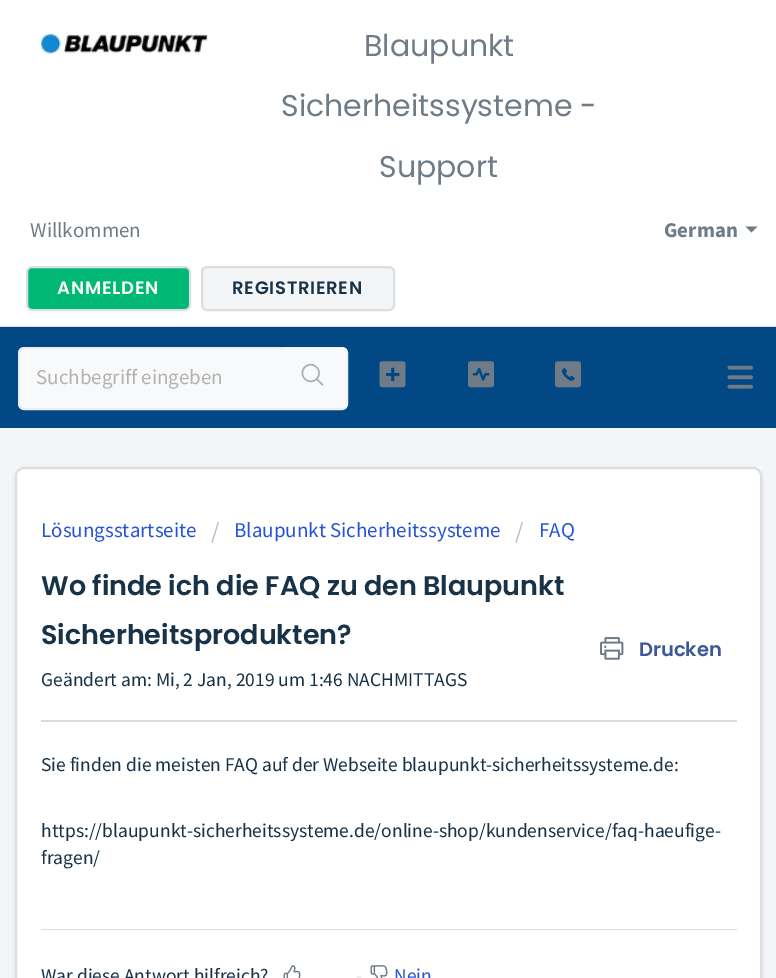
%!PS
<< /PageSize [776 978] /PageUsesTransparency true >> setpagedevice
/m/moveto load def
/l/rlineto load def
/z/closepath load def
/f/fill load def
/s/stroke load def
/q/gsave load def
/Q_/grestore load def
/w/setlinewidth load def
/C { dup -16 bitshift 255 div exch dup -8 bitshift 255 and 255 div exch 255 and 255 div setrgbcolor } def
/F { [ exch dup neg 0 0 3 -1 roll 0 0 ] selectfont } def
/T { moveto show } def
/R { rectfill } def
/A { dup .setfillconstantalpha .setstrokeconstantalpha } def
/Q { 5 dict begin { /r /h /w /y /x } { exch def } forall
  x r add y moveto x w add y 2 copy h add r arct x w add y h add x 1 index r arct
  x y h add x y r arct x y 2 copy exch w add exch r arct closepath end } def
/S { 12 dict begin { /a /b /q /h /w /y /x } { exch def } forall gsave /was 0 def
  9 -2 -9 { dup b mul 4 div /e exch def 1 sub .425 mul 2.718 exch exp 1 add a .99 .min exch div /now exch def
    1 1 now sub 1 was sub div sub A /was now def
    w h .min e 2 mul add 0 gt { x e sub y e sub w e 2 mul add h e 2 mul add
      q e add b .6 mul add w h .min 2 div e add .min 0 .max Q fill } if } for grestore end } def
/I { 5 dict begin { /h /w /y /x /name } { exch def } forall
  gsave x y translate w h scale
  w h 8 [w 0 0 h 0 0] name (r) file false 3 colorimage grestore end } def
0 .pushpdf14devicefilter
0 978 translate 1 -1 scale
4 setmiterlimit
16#F3F5F7 C
0 0 776 978 R
16#FFFFFF C
0 0 776 326 R
16#DADFE3 C
0 326 776 1 R
(1.rgb) 39 32 169 23 I
/Poppins-Regular 30 F
16#6F7C87 C
(Blaupunkt) 364 56 T
(Sicherheitssysteme -) 281 116 T
(Support) 379 177 T
/SourceSansPro-Regular 21 F
(Willkommen) 30 237 T
/SourceSansPro-Bold 21 F
(German) 664 237 T
745.5 226.5 m 12 0 l -6 6 l z f
16#02B875 C
27 267 163 43 5 Q q f Q_
16#DADFE3 C
2 w
s
/Poppins-SemiBold 18 F
16#FFFFFF C
57 294 m .75 0 (ANMELDEN) ashow
16#F3F5F7 C
202 267 192 43 5 Q q f Q_
16#DADFE3 C
s
16#183247 C
232 294 m .75 0 (REGISTRIEREN) ashow
16#014885 C
0 327 776 101 R
(2.rgb) 727 365 26 24 I
16#F8F9FA C
19 348 328 61 5 Q q f Q_
16#EBEEF0 C
s
/SourceSansPro-Regular 21 F
16#B2B2B2 C
(Suchbegriff eingeben) 36 384 T
16#F8F9FA C
282 348 65 60 3 Q f
(3.rgb) 301 363 23 23 I
(4.rgb) 379 361 27 27 I
(5.rgb) 468 361 26 27 I
(6.rgb) 555 361 26 27 I
15 467 747 9 R
16#3F3F44 C
15 468 747 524 9 1.5 .15 S
16#FFFFFF C
16 468 745 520 8 Q q f Q_
16#DADFE3 C
s
16#2753D7 C
(Lösungsstartseite) 41 537 T
/SourceSansPro-Regular 24 F
16#BBBBBB C
(/) 211 539 T
/SourceSansPro-Regular 21 F
16#2753D7 C
(Blaupunkt Sicherheitssysteme) 234 537 T
/SourceSansPro-Regular 24 F
16#BBBBBB C
(/) 515 539 T
/SourceSansPro-Regular 21 F
16#2753D7 C
(FAQ) 539 537 T
/Poppins-SemiBold 27 F
16#183247 C
(Wo finde ich die FAQ zu den Blaupunkt) 41 595 T
(Sicherheitsprodukten?) 41 644 T
(7.rgb) 600 637 24 23 I
/Poppins-SemiBold 19.5 F
16#3B5998 C
(Drucken) 639 656 T
/SourceSansPro-Regular 19.5 F
16#183247 C
(Geändert am: Mi, 2 Jan, 2019 um 1:46 NACHMITTAGS) 41 686 T
16#DCDCDC C
41 720 696 2 R
16#183247 C
(Sie finden die meisten FAQ auf der Webseite blaupunkt-sicherheitssysteme.de:) 41 771 T
(https://blaupunkt-sicherheitssysteme.de/online-shop/kundenservice/faq-haeufige-) 41 837 T
(fragen/) 41 864 T
16#DCDCDC C
41 929 696 1 R
16#183247 C
(War diese Antwort hilfreich?) 41 982 T
(8.rgb) 283 965 18 13 I
16#E5E5E5 C
(-) 356 982 T
(9.rgb) 370 965 18 13 I
16#2753D7 C
(Nein) 394 982 T
.poppdf14devicefilter showpage
